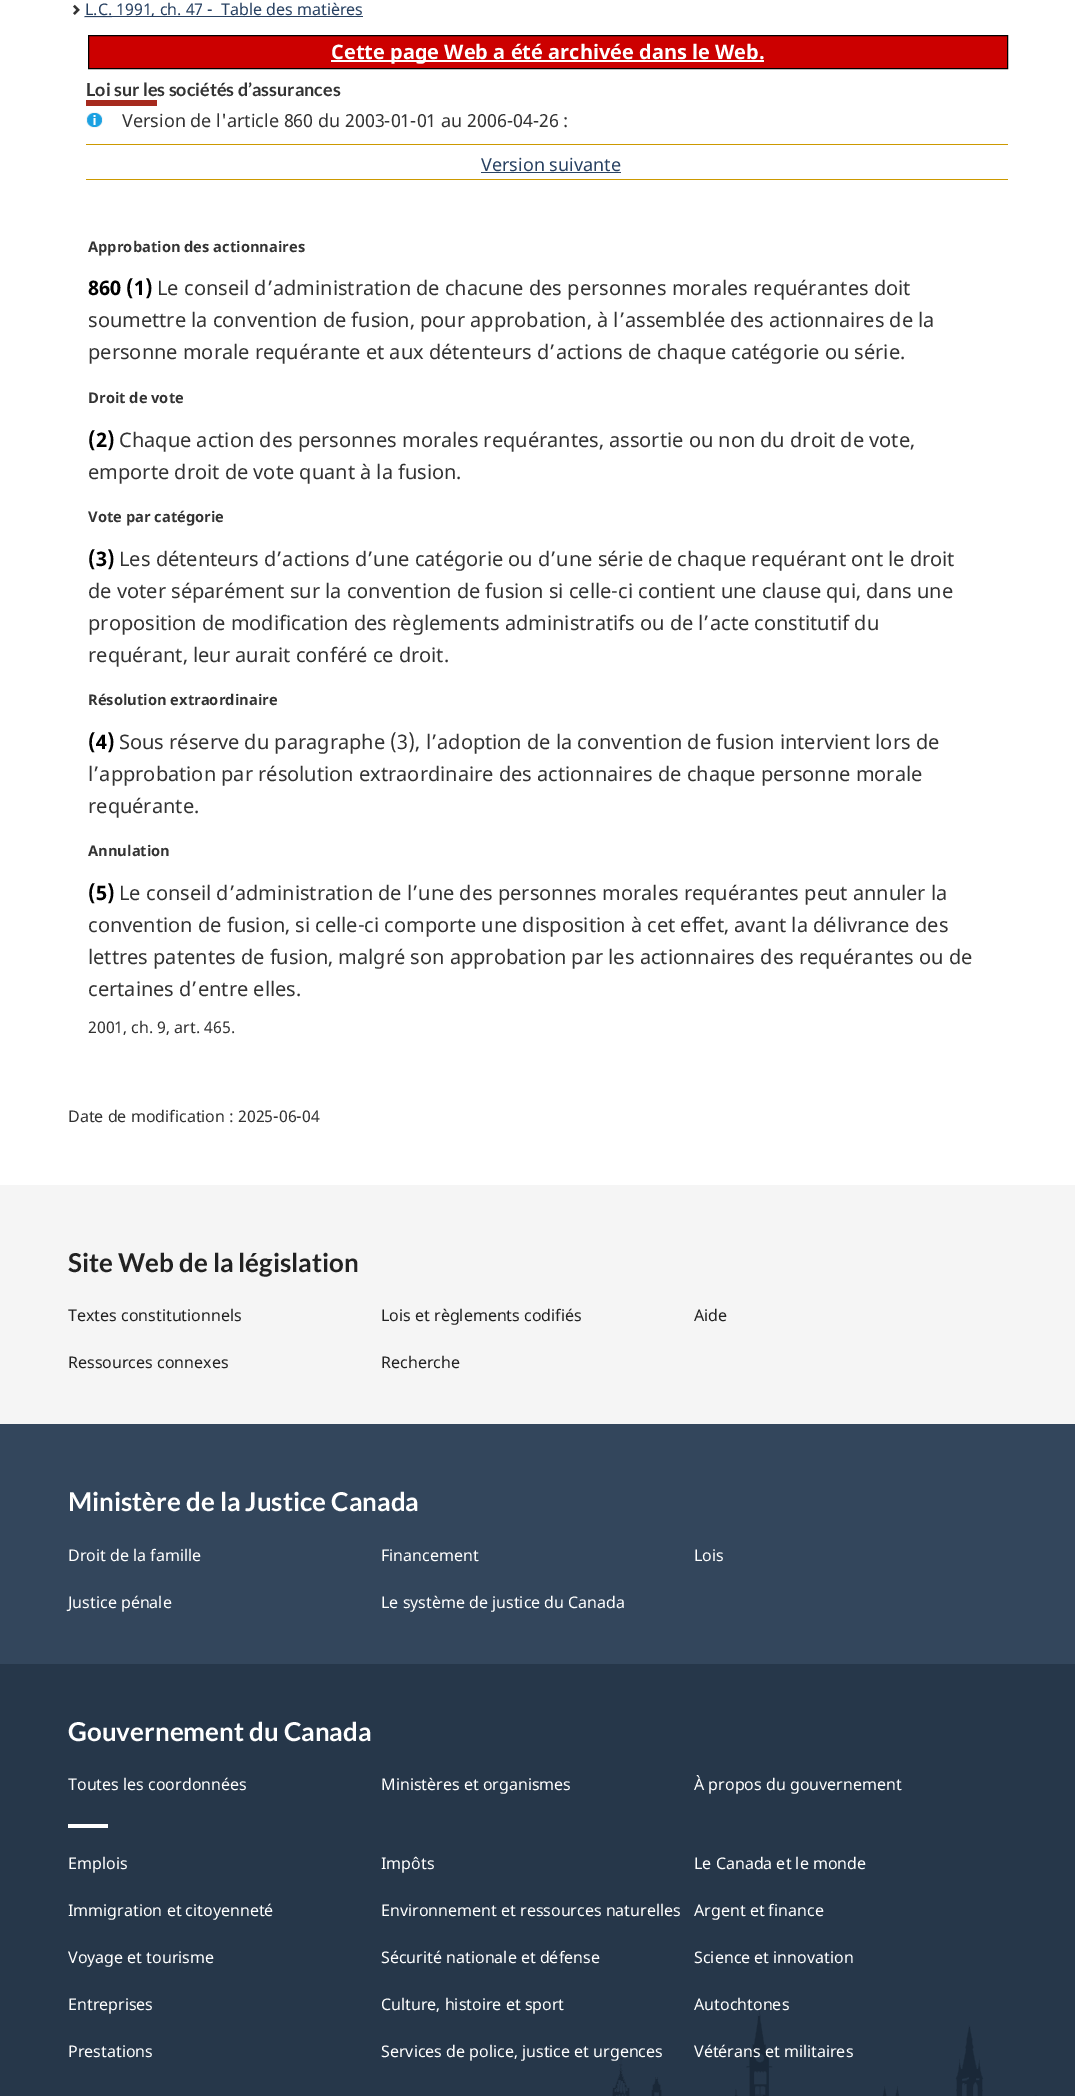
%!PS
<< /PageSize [1075 2096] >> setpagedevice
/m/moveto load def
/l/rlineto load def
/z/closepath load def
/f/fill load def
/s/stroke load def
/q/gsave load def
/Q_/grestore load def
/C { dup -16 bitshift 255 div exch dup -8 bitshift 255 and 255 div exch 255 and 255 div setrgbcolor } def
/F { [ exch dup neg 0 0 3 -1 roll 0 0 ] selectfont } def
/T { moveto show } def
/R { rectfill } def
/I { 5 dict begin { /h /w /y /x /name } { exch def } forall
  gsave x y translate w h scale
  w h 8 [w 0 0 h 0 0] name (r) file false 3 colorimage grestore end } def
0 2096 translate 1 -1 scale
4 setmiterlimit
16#FFFFFF C
0 0 1075 2096 R
(1.rgb) 73 4 7 11 I
16#284162 C
[1 1] 0 setdash
84.5 16.5 m 27.5 0 l s
85 16 278 1 R
/NotoSans-Regular 16 F
(L.C. 1991, ch. 47 -  Table des matières) 85 15 T
16#CC0000 C
88.5 35.5 m 919 0 l 0 33 l -919 0 l z q f Q_
16#000000 C
[] 0 setdash
s
16#FFFFFF C
331 60 433 2 R
/NotoSans-Bold 20 F
(Cette page Web a été archivée dans le Web.) 331 59 T
16#A62A1E C
86 100 71 6 R
/Lato-Bold 18 F
16#333333 C
(Loi sur les sociétés d’assurances) 86 96 T
(2.rgb) 86 112 17 16 I
/NotoSans-Regular 18 F
(Version de l'article 860 du 2003-01-01 au 2006-04-26 :) 122 127 T
16#CC9900 C
86 144 922 1 R
86 179 922 1 R
16#284162 C
(Version suivante) 481 171 T
481 172 140 1 R
/NotoSans-Bold 14.7 F
16#333333 C
(Approbation des actionnaires) 88 252 T
/NotoSans-Bold 20 F
16#000000 C
(860 \(1\)) 88 295 T
/NotoSans-Regular 20 F
16#333333 C
(Le conseil d’administration de chacune des personnes morales requérantes doit) 157 295 T
(soumettre la convention de fusion, pour approbation, à l’assemblée des actionnaires de la) 88 327 T
(personne morale requérante et aux détenteurs d’actions de chaque catégorie ou série.) 88 359 T
/NotoSans-Bold 14.7 F
(Droit de vote) 88 403 T
/NotoSans-Bold 20 F
16#000000 C
(\(2\)) 88 447 T
/NotoSans-Regular 20 F
16#333333 C
(Chaque action des personnes morales requérantes, assortie ou non du droit de vote,) 119 447 T
(emporte droit de vote quant à la fusion.) 88 479 T
/NotoSans-Bold 14.7 F
(Vote par catégorie) 88 522 T
/NotoSans-Bold 20 F
16#000000 C
(\(3\)) 88 566 T
/NotoSans-Regular 20 F
16#333333 C
(Les détenteurs d’actions d’une catégorie ou d’une série de chaque requérant ont le droit) 119 566 T
(de voter séparément sur la convention de fusion si celle-ci contient une clause qui, dans une) 88 598 T
(proposition de modification des règlements administratifs ou de l’acte constitutif du) 88 630 T
(requérant, leur aurait conféré ce droit.) 88 662 T
/NotoSans-Bold 14.7 F
(Résolution extraordinaire) 88 705 T
/NotoSans-Bold 20 F
16#000000 C
(\(4\)) 88 749 T
/NotoSans-Regular 20 F
16#333333 C
(Sous réserve du paragraphe \(3\), l’adoption de la convention de fusion intervient lors de) 119 749 T
(l’approbation par résolution extraordinaire des actionnaires de chaque personne morale) 88 781 T
(requérante.) 88 813 T
/NotoSans-Bold 14.7 F
(Annulation) 88 856 T
/NotoSans-Bold 20 F
16#000000 C
(\(5\)) 88 900 T
/NotoSans-Regular 20 F
16#333333 C
(Le conseil d’administration de l’une des personnes morales requérantes peut annuler la) 119 900 T
(convention de fusion, si celle-ci comporte une disposition à cet effet, avant la délivrance des) 88 932 T
(lettres patentes de fusion, malgré son approbation par les actionnaires des requérantes ou de) 88 964 T
(certaines d’entre elles.) 88 996 T
/NotoSans-Regular 16 F
(2001, ch. 9, art. 465.) 88 1033 T
(Date de modification : 2025-06-04) 68 1122 T
16#F5F5F5 C
0 1185 1075 239 R
/Lato-Bold 26 F
16#222222 C
(Site Web de la législation) 68 1272 T
/NotoSans-Regular 16 F
(Textes constitutionnels) 68 1321 T
(Lois et règlements codifiés) 381 1321 T
(Aide) 694 1321 T
(Ressources connexes) 68 1368 T
(Recherche) 381 1368 T
16#33465C C
0 1424 1075 240 R
/Lato-Bold 26 F
16#FFFFFF C
(Ministère de la Justice Canada) 68 1511 T
/NotoSans-Regular 16 F
(Droit de la famille) 68 1561 T
(Financement) 381 1561 T
(Lois) 694 1561 T
(Justice pénale) 68 1608 T
(Le système de justice du Canada) 381 1608 T
16#26374A C
0 1664 1075 432 R
(3.rgb) 612 2003 425 93 I
/Lato-Bold 26 F
16#FFFFFF C
(Gouvernement du Canada) 68 1741 T
/NotoSans-Regular 16 F
(Toutes les coordonnées) 68 1790 T
(Ministères et organismes) 381 1790 T
(À propos du gouvernement) 694 1790 T
68 1824 40 4 R
(Emplois) 68 1869 T
(Impôts) 381 1869 T
(Le Canada et le monde) 694 1869 T
(Immigration et citoyenneté) 68 1916 T
(Environnement et ressources naturelles) 381 1916 T
(Argent et finance) 694 1916 T
(Voyage et tourisme) 68 1963 T
(Sécurité nationale et défense) 381 1963 T
(Science et innovation) 694 1963 T
(Entreprises) 68 2010 T
(Culture, histoire et sport) 381 2010 T
(Autochtones) 694 2010 T
(Prestations) 68 2057 T
(Services de police, justice et urgences) 381 2057 T
(Vétérans et militaires) 694 2057 T
showpage
